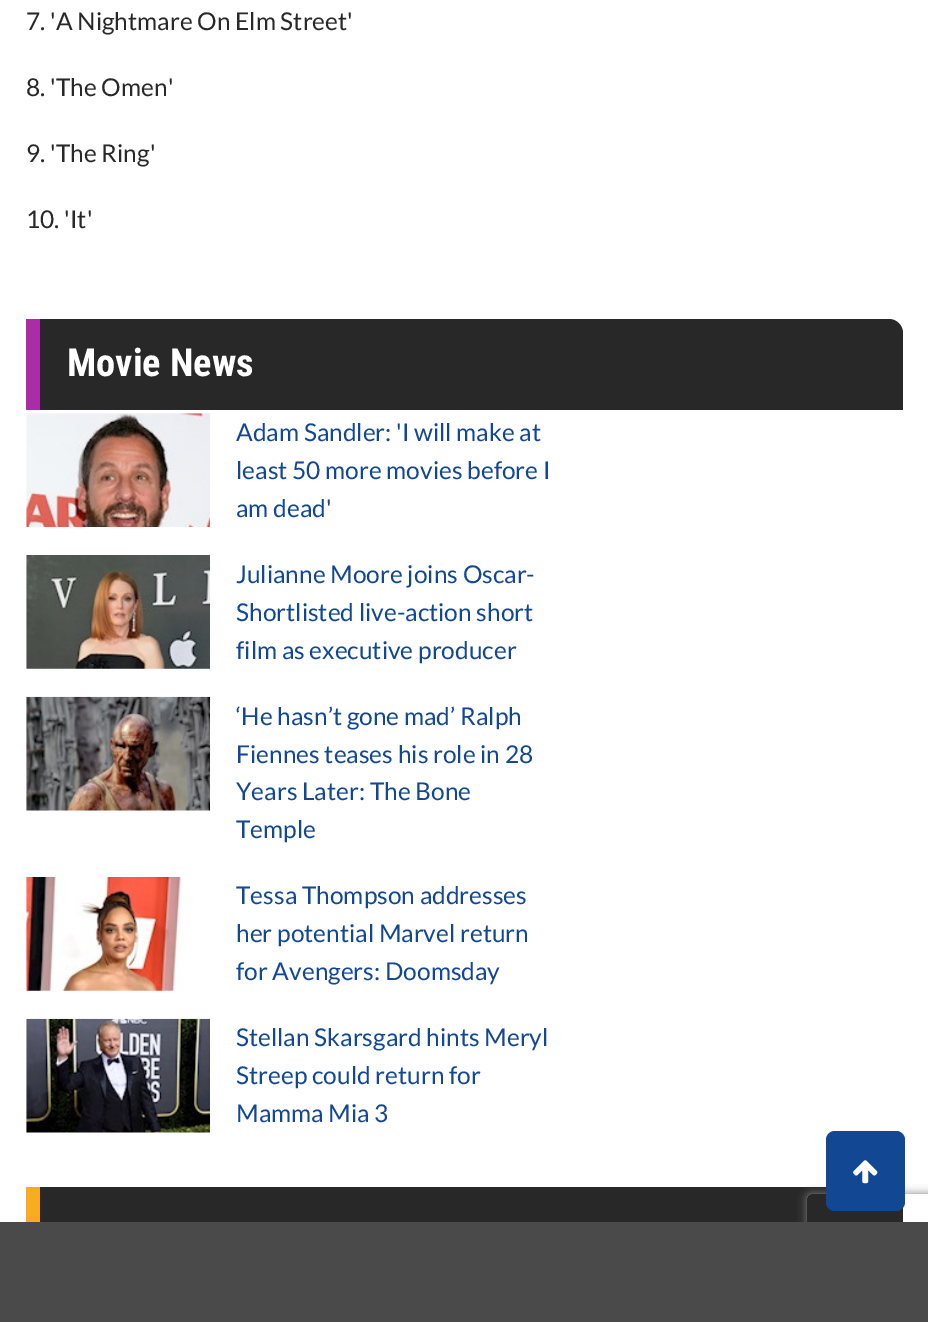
%!PS
<< /PageSize [928 1322] /PageUsesTransparency true >> setpagedevice
/m/moveto load def
/l/rlineto load def
/c/rcurveto load def
/z/closepath load def
/f/fill load def
/q/gsave load def
/Q_/grestore load def
/C { dup -16 bitshift 255 div exch dup -8 bitshift 255 and 255 div exch 255 and 255 div setrgbcolor } def
/F { [ exch dup neg 0 0 3 -1 roll 0 0 ] selectfont } def
/T { moveto show } def
/R { rectfill } def
/A { dup .setfillconstantalpha .setstrokeconstantalpha } def
/Q { 5 dict begin { /r /h /w /y /x } { exch def } forall
  x r add y moveto x w add y 2 copy h add r arct x w add y h add x 1 index r arct
  x y h add x y r arct x y 2 copy exch w add exch r arct closepath end } def
/S { 12 dict begin { /a /b /q /h /w /y /x } { exch def } forall gsave /was 0 def
  9 -2 -9 { dup b mul 4 div /e exch def 1 sub .425 mul 2.718 exch exp 1 add a .99 .min exch div /now exch def
    1 1 now sub 1 was sub div sub A /was now def
    w h .min e 2 mul add 0 gt { x e sub y e sub w e 2 mul add h e 2 mul add
      q e add b .6 mul add w h .min 2 div e add .min 0 .max Q fill } if } for grestore end } def
/I { 5 dict begin { /h /w /y /x /name } { exch def } forall
  gsave x y translate w h scale
  w h 8 [w 0 0 h 0 0] name (r) file false 3 colorimage grestore end } def
0 .pushpdf14devicefilter
0 1322 translate 1 -1 scale
4 setmiterlimit
16#FFFFFF C
0 0 928 1322 R
/Lato-Regular 24.5 F
16#282828 C
(7. 'A Nightmare On Elm Street') 26 30 T
(8. 'The Omen') 26 96 T
(9. 'The Ring') 26 162 T
(10. 'It') 26 228 T
26 319 m 863 0 l 7.5 0 14 6.5 14 14 c 0 77 l -877 0 l z f
16#AB2CA7 C
26 319 14 91 R
/RobotoCondensed-Bold 38.5 F
16#FFFFFF C
(Movie News) 67 376 T
(1.rgb) 26 413 184 114 I
/Lato-Regular 24.5 F
16#124793 C
(Adam Sandler: 'I will make at) 236 441 T
(least 50 more movies before I) 236 479 T
(am dead') 236 517 T
(2.rgb) 26 555 184 114 I
(Julianne Moore joins Oscar-) 236 583 T
(Shortlisted live-action short) 236 621 T
(film as executive producer) 236 659 T
(3.rgb) 26 696 184 115 I
(‘He hasn’t gone mad’ Ralph) 236 725 T
(Fiennes teases his role in 28) 236 763 T
(Years Later: The Bone) 236 800 T
(Temple) 236 838 T
(4.rgb) 26 877 157 114 I
(Tessa Thompson addresses) 236 904 T
(her potential Marvel return) 236 942 T
(for Avengers: Doomsday) 236 980 T
(5.rgb) 26 1018 184 115 I
(Stellan Skarsgard hints Meryl) 236 1046 T
(Streep could return for) 236 1084 T
(Mamma Mia 3) 236 1122 T
16#282828 C
40 1187 863 35 R
16#FAAC1F C
26 1187 14 35 R
q
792 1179 m 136 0 l 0 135 l -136 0 l z 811 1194 m 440 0 l 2 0 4 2 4 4 c 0 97 l 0 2 -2 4 -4 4 c -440 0 l -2 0 -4 -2 -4 -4 c 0 -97 l 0 -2 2 -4 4 -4 c z eoclip newpath
16#808080 C
807 1194 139 105 4 4.5 1 S
Q_
16#124793 C
826 1131 79 80 9 Q f
(6.rgb) 853 1160 25 24 I
16#4A4A4A C
0 1222 928 100 R
.poppdf14devicefilter showpage
